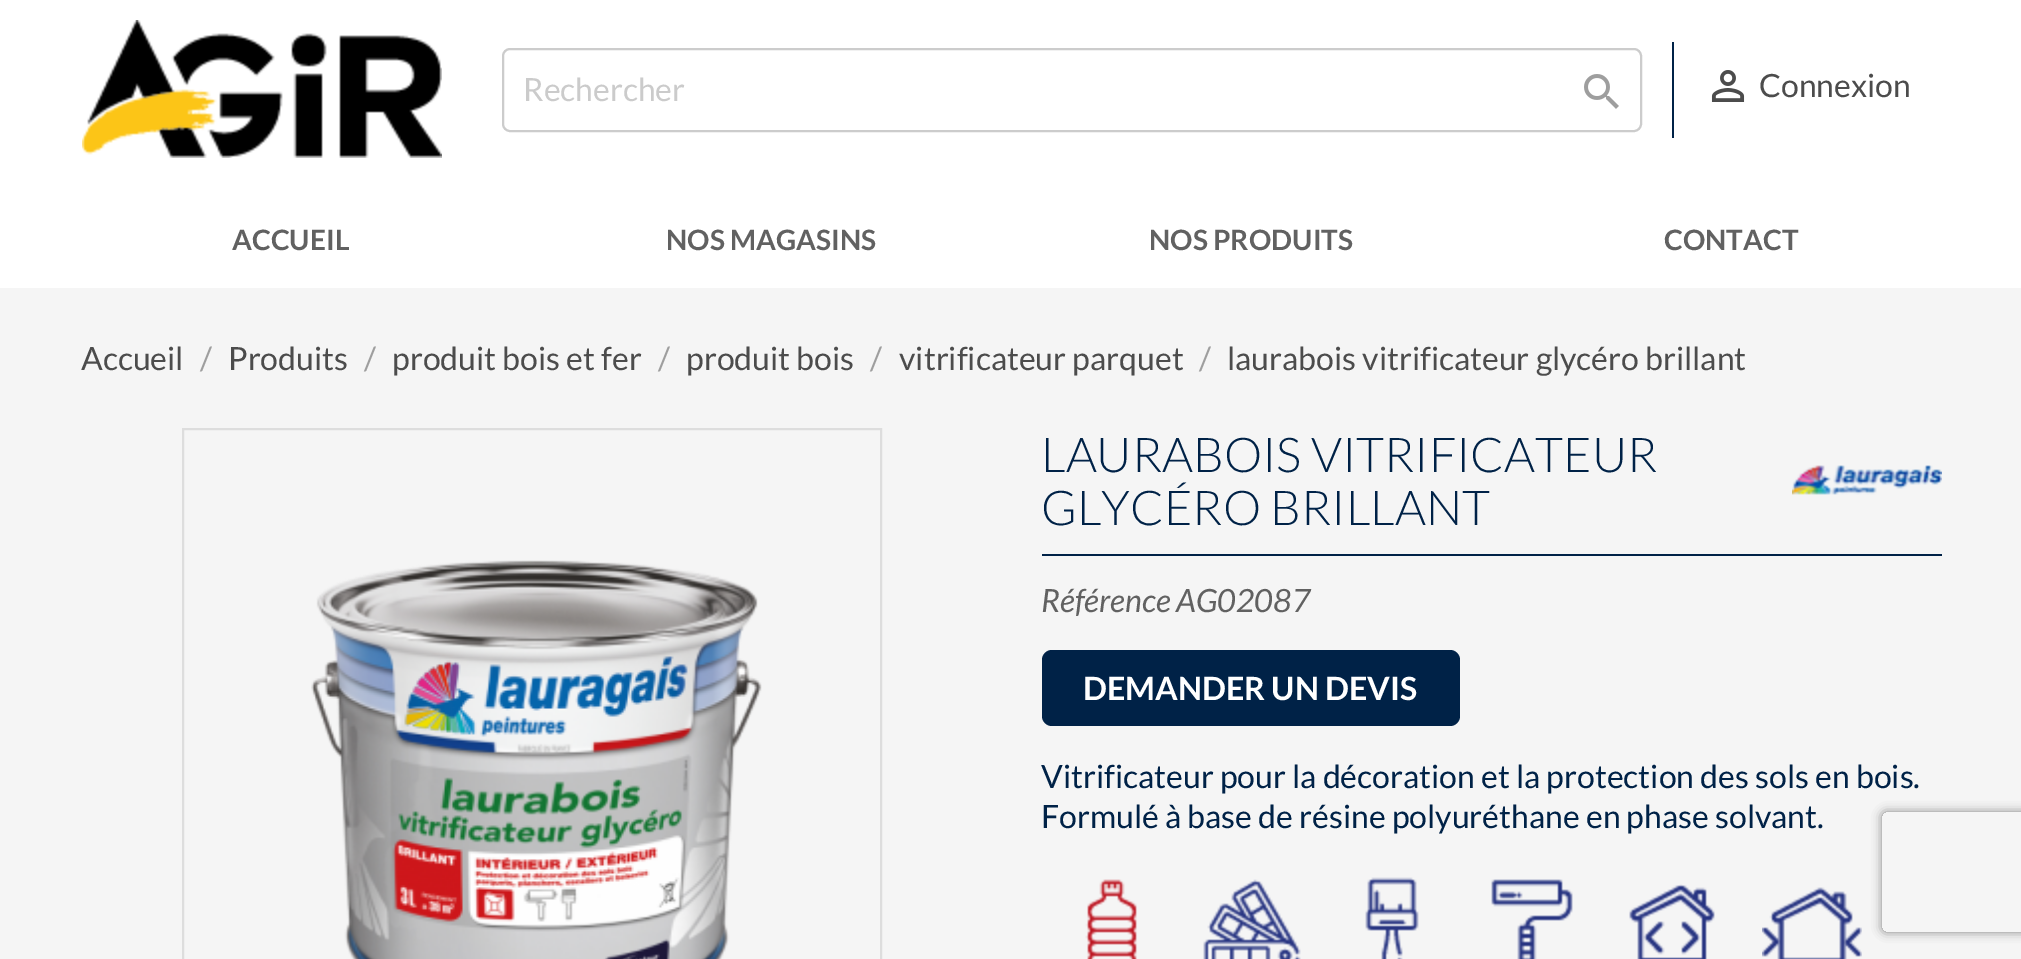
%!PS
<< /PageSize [2021 959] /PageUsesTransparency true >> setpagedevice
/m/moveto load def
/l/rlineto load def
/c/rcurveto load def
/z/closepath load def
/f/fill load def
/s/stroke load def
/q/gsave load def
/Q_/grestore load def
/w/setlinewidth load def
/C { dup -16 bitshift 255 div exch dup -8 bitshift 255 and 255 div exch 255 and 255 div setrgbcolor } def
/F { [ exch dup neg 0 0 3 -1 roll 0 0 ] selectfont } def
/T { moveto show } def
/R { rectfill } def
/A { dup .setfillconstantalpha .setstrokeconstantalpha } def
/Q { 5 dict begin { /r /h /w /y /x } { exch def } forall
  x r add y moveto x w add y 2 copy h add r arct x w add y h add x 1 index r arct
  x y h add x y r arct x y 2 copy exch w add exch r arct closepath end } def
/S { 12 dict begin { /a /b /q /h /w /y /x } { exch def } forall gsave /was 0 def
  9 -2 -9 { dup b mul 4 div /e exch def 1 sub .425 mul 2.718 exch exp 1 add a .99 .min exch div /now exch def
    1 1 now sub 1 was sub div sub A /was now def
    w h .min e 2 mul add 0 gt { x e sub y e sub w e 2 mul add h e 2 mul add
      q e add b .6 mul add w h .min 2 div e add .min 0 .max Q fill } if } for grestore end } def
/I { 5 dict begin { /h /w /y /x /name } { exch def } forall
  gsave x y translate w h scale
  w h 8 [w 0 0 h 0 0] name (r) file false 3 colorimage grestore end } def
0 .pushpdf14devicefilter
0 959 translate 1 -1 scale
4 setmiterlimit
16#F5F5F5 C
0 0 2021 959 R
16#FFFFFF C
0 0 2021 288 R
(1.rgb) 82 20 360 138 I
16#CCCCCC C
2 w
503 49 1138 82 7 Q s
/Lato-Regular 32 F
16#CBCBCB C
(Rechercher) 523 101 T
(2.rgb) 1584 74 35 35 I
16#002247 C
1672 42 2 96 R
(3.rgb) 1711 70 34 32 I
16#4C4C4C C
(Connexion) 1759 97 T
/Lato-Bold 28 F
16#616161 C
(ACCUEIL) 232 250 T
(NOS MAGASINS) 666 250 T
(NOS PRODUITS) 1149 250 T
(CONTACT) 1664 250 T
/Lato-Regular 32 F
16#4C4C4C C
(Accueil) 81 370 T
16#9E9E9E C
(/) 200 370 T
16#4C4C4C C
(Produits) 228 370 T
16#9E9E9E C
(/) 364 370 T
16#4C4C4C C
(produit bois et fer) 392 370 T
16#9E9E9E C
(/) 658 370 T
16#4C4C4C C
(produit bois) 686 370 T
16#9E9E9E C
(/) 870 370 T
16#4C4C4C C
(vitrificateur parquet) 899 370 T
16#9E9E9E C
(/) 1199 370 T
16#4C4C4C C
(laurabois vitrificateur glycéro brillant) 1227 370 T
16#DDDDDD C
183 429 698 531 rectstroke
(4.rgb) 311 560 451 399 I
16#002247 C
1042 554 900 2 R
/Lato-Light 48 F
(LAURABOIS VITRIFICATEUR) 1041 472 T
(GLYCÉRO BRILLANT) 1041 525 T
(5.rgb) 1792 465 150 30 I
/Lato-Italic 32 F
16#616161 C
(Référence) 1041 612 T
(AG02087) 1176 612 T
16#002247 C
1042 650 418 76 10 Q f
/Lato-Bold 32 F
16#FFFFFF C
(DEMANDER UN DEVIS) 1083 700 T
/Lato-Regular 32 F
16#002247 C
(Vitrificateur pour la décoration et la protection des sols en bois.) 1041 788 T
(Formulé à base de résine polyuréthane en phase solvant.) 1041 828 T
(6.rgb) 1085 879 52 80 I
(7.rgb) 1203 879 98 80 I
(8.rgb) 1365 877 54 82 I
(9.rgb) 1491 879 82 80 I
(10.rgb) 1629 884 86 75 I
(11.rgb) 1762 887 100 72 I
q
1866 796 m 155 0 l 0 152 l -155 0 l z 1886 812 m 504 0 l 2 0 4 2 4 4 c 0 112 l 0 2 -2 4 -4 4 c -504 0 l -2 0 -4 -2 -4 -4 c 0 -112 l 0 -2 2 -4 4 -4 c z eoclip newpath
16#808080 C
1882 812 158 120 4 5 1 S
Q_
.poppdf14devicefilter showpage
